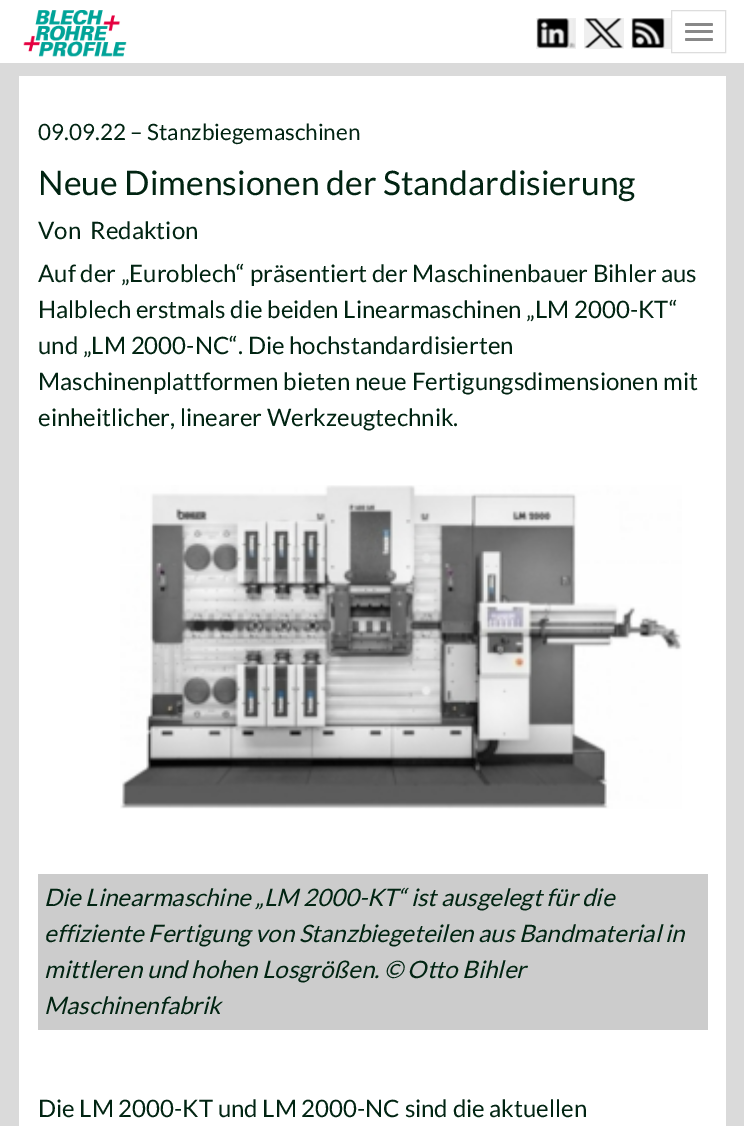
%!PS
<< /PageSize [744 1126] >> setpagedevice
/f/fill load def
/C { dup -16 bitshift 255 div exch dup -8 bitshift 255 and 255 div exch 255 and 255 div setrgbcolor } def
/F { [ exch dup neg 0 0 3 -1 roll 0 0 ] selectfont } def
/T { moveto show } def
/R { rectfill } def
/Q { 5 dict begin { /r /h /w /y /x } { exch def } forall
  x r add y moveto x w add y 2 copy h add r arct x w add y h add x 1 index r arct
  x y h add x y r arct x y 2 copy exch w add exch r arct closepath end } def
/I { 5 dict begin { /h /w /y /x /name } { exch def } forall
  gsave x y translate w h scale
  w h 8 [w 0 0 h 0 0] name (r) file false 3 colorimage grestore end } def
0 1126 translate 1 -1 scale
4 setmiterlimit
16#DADADA C
0 0 744 1126 R
16#FFFFFF C
0 0 744 63 R
(1.rgb) 23 10 104 47 I
16#EFEFEF C
536 18 40 31 R
(2.rgb) 537 18 39 30 I
584 18 40 31 R
(3.rgb) 584 18 39 30 I
631 18 40 31 R
(4.rgb) 632 18 33 30 I
16#DDDDDD C
671.5 10.5 54 42 rectstroke
16#888888 C
685 23 28 3 1.5 Q f
685 30 28 3 1.5 Q f
685 38 28 3 1.5 Q f
16#FFFFFF C
19 76 707 1050 R
/Lato-Regular 22.5 F
16#012412 C
(09.09.22 – Stanzbiegemaschinen) 38 140 T
/Lato-Regular 33.75 F
(Neue Dimensionen der Standardisierung) 38 195 T
/Lato-Regular 24 F
(Von  Redaktion) 38 239 T
(Auf der „Euroblech“ präsentiert der Maschinenbauer Bihler aus) 38 282 T
(Halblech erstmals die beiden Linearmaschinen „LM 2000-KT“) 38 318 T
(und „LM 2000-NC“. Die hochstandardisierten) 38 354 T
(Maschinenplattformen bieten neue Fertigungsdimensionen mit) 38 390 T
(einheitlicher, linearer Werkzeugtechnik.) 38 426 T
(5.rgb) 120 485 562 324 I
16#CCCCCC C
38 874 670 156 R
/Lato-Italic 24 F
16#012412 C
(Die Linearmaschine „LM 2000-KT“ ist ausgelegt für die) 44 906 T
(effiziente Fertigung von Stanzbiegeteilen aus Bandmaterial in) 44 942 T
(mittleren und hohen Losgrößen. © Otto Bihler) 44 978 T
(Maschinenfabrik) 44 1014 T
/Lato-Regular 24 F
(Die LM 2000-KT und LM 2000-NC sind die aktuellen) 38 1117 T
showpage
